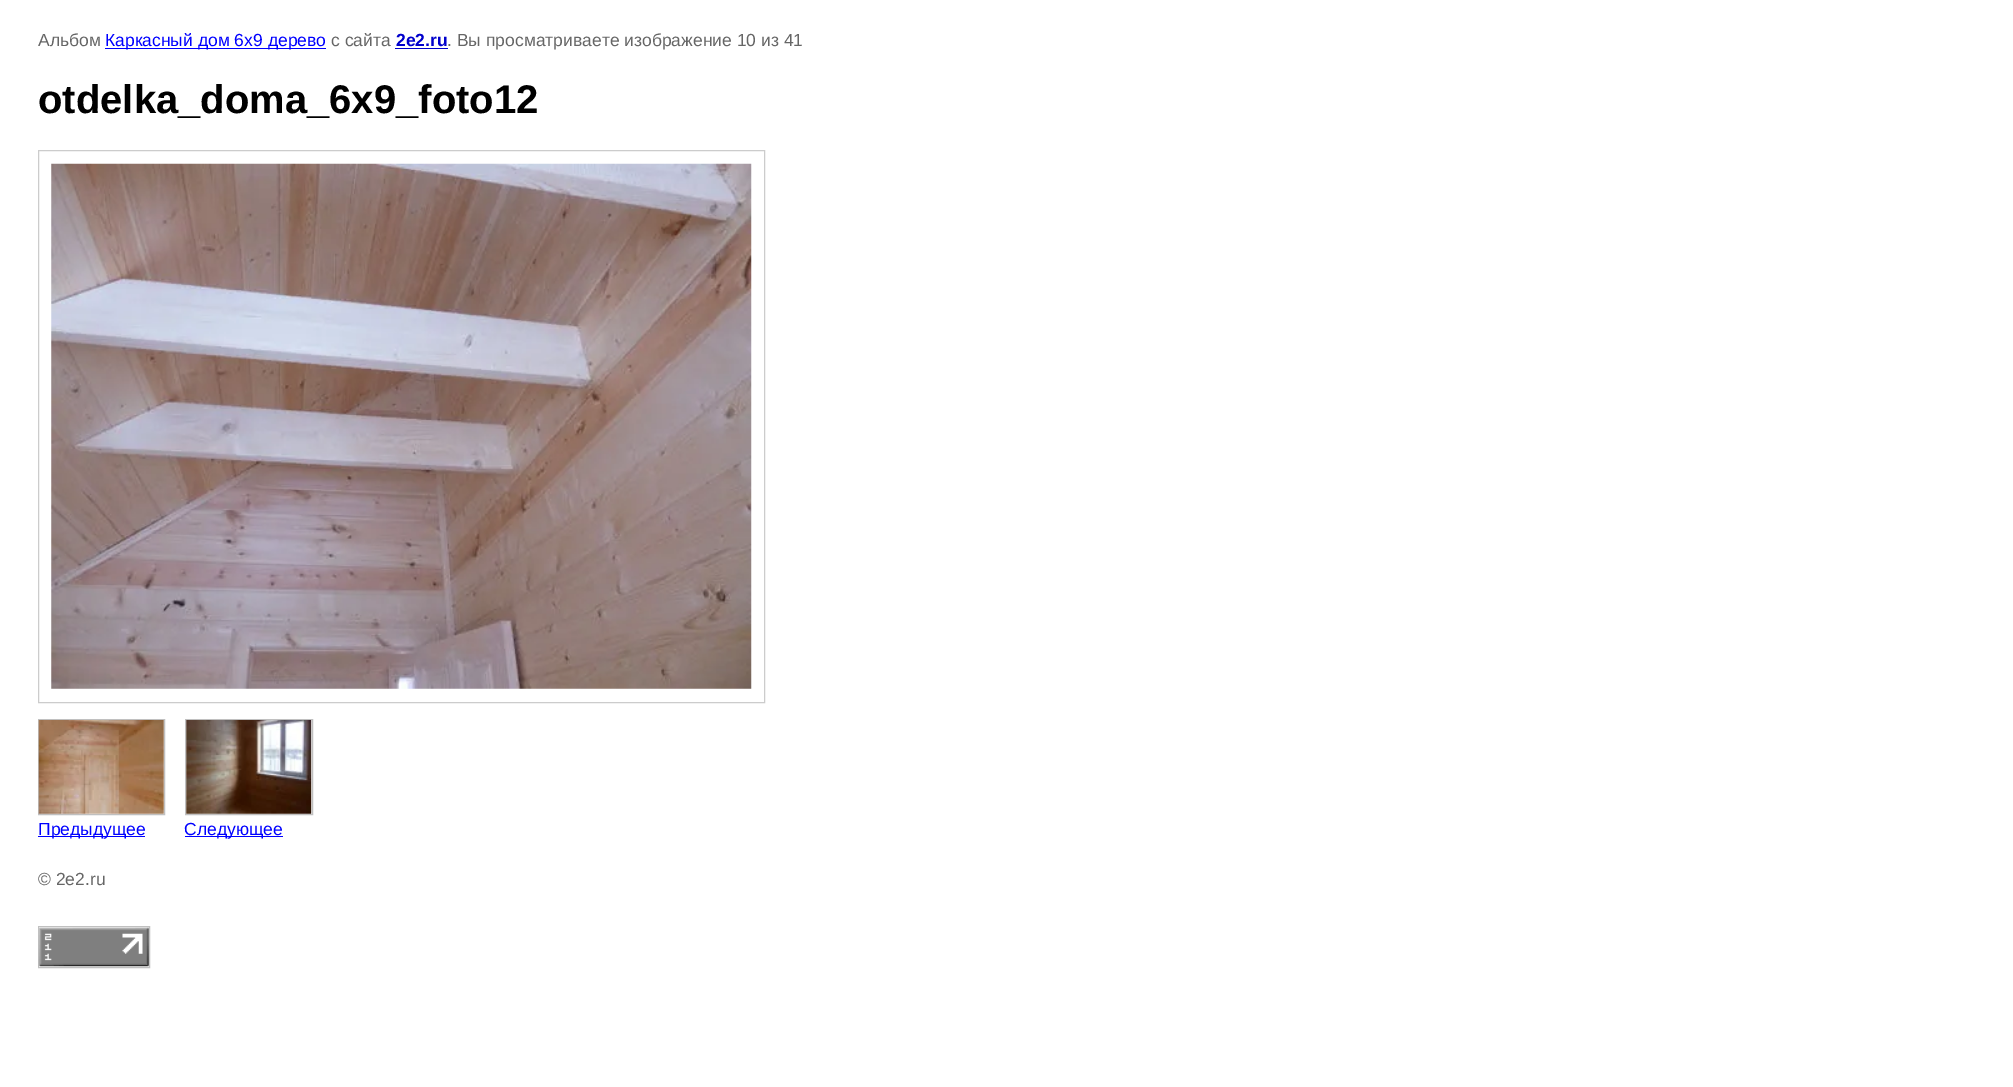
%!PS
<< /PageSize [2013 1087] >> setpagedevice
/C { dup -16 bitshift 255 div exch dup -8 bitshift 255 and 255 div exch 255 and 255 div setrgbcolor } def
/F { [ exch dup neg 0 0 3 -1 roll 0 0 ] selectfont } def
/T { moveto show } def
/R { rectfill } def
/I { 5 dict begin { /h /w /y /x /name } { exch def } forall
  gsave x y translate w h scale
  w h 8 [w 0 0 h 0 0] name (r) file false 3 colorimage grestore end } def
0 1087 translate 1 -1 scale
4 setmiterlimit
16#FFFFFF C
0 0 2013 1087 R
/LiberationSans-Regular 17.5 F
16#666666 C
(Альбом) 38 46 T
16#0000FF C
105 48 221 1 R
(Каркасный дом 6х9 дерево) 105 46 T
16#666666 C
(с сайта) 331 46 T
/LiberationSans-Bold 17.5 F
16#0000CC C
(2e2.ru) 396 46 T
395 48 53 1 R
/LiberationSans-Regular 17.5 F
16#666666 C
(. Вы просматриваете изображение 10 из 41) 447 46 T
/LiberationSans-Bold 40 F
16#000000 C
(otdelka_doma_6x9_foto12) 38 113 T
16#CCCCCC C
38.5 150.5 726 552 rectstroke
(1.rgb) 51 163 701 526 I
16#C0C0C0 C
38.5 719.5 126 95 rectstroke
(2.rgb) 38 720 126 94 I
16#0000FF C
38 836 107 1 R
/LiberationSans-Regular 17.5 F
(Предыдущее) 38 835 T
16#C0C0C0 C
185.5 719.5 127 95 rectstroke
(3.rgb) 186 720 126 94 I
16#0000FF C
185 836 98 1 R
(Следующее) 184 835 T
16#666666 C
(© 2e2.ru) 38 885 T
16#C0C0C0 C
38.5 926.5 111 41 rectstroke
(4.rgb) 38 927 111 40 I
showpage
